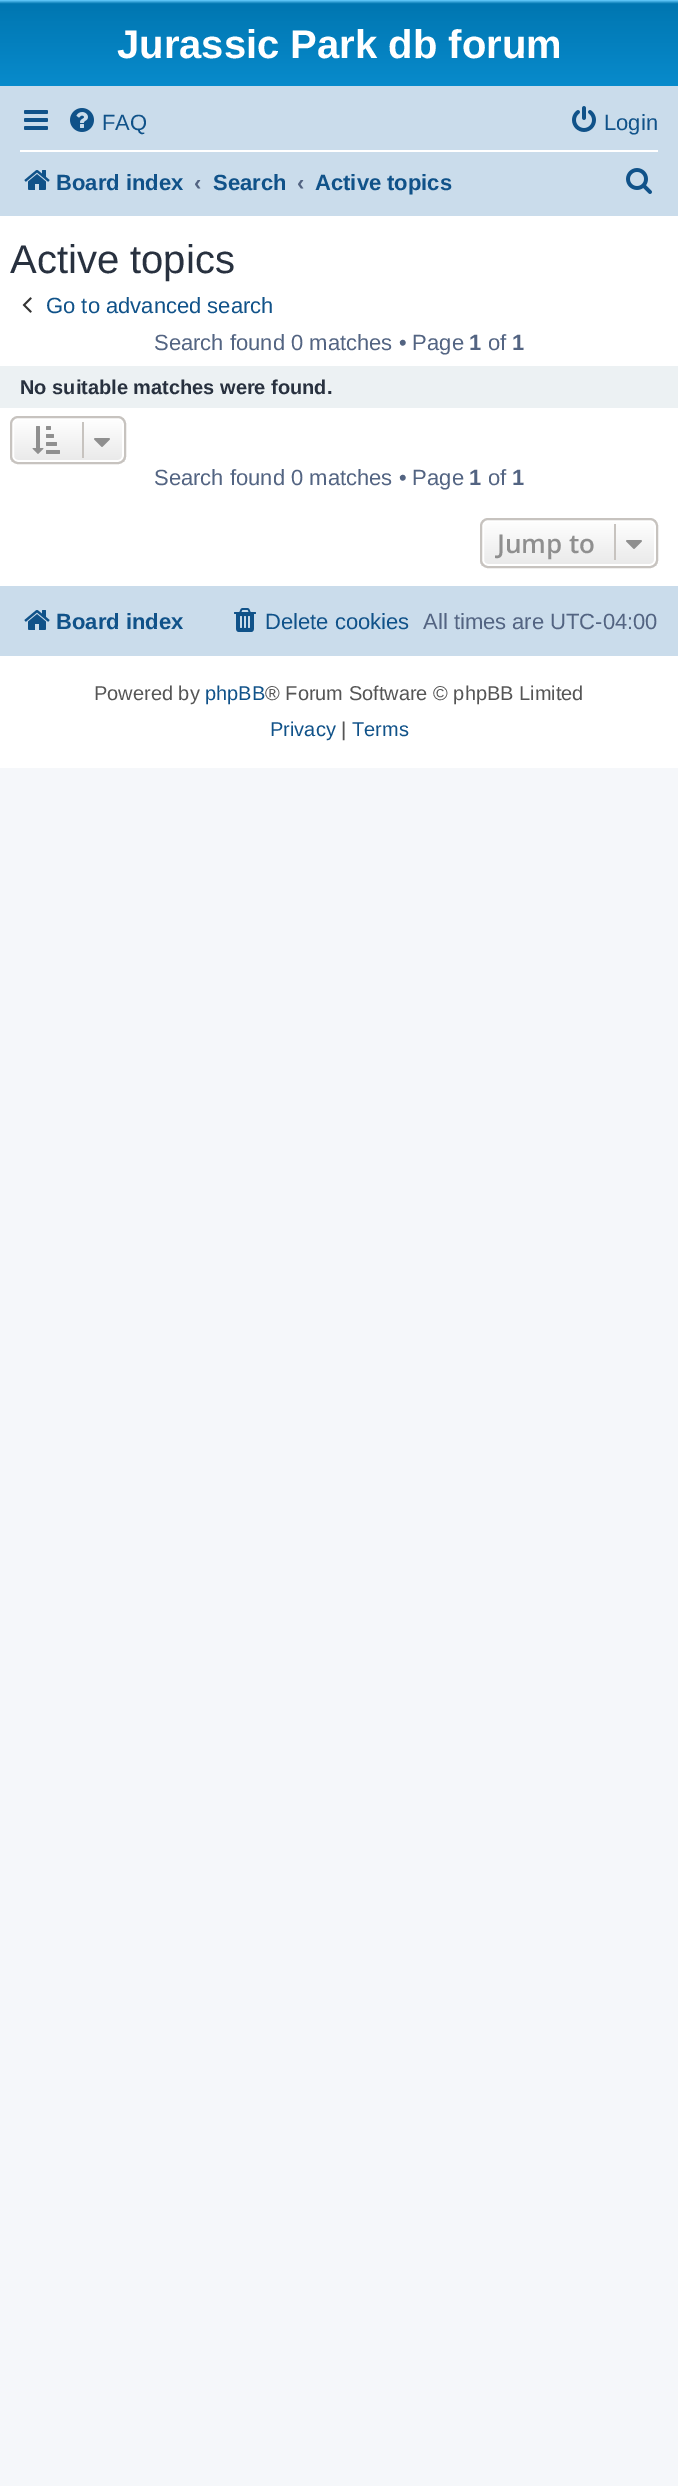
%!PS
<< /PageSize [678 2486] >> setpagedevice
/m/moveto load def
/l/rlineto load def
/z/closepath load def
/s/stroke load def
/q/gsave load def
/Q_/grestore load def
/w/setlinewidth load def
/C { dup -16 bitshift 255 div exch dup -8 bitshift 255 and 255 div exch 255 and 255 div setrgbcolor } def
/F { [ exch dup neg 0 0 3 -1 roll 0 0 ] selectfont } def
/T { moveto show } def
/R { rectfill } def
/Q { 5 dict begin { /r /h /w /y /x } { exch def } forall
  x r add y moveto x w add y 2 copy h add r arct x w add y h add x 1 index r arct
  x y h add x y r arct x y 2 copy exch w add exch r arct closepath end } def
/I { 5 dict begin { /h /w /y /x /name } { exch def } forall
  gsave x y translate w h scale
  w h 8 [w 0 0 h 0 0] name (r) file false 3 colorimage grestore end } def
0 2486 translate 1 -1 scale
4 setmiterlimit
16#F5F7FA C
0 0 678 2486 R
16#FFFFFF C
0 216 678 552 R
q 0 0 m 678 0 l 0 86 l -678 0 l z clip newpath
<< /ShadingType 2 /ColorSpace /DeviceRGB /Coords [339 0 339 184] /Extend [true true] /Function << /FunctionType 3 /Domain [0 1] /Functions [<< /FunctionType 2 /Domain [0 1] /C0 [.416 .808 1] /C1 [0 .463 .694] /N 1 >> << /FunctionType 2 /Domain [0 1] /C0 [0 .463 .694] /C1 [.071 .639 .922] /N 1 >>] /Bounds [.02] /Encode [0 1 0 1] >> >> shfill Q_
/LiberationSans-Bold 40 F
(Jurassic Park db forum) 117 58 T
16#CADCEB C
0 86 678 130 R
(1.rgb) 24 110 24 20 I
(2.rgb) 70 108 24 24 I
/LiberationSans-Regular 22 F
16#105289 C
(FAQ) 102 130 T
(3.rgb) 572 106 24 26 I
(Login) 604 130 T
16#FFFFFF C
20 150 638 2 R
(4.rgb) 24 170 26 20 I
/LiberationSans-Bold 22 F
16#105289 C
(Board index) 56 190 T
16#536482 C
(‹) 194 190 T
16#105289 C
(Search) 213 190 T
16#536482 C
(‹) 297 190 T
16#105289 C
(Active topics) 315 190 T
(5.rgb) 626 168 26 26 I
/LiberationSans-Regular 40 F
16#28313F C
(Active topics) 10 273 T
(6.rgb) 22 297 10 16 I
/LiberationSans-Regular 22 F
16#105289 C
(Go to advanced search) 46 313 T
16#536482 C
(Search found 0 matches • Page) 154 350 T
/LiberationSans-Bold 22 F
(1) 469 350 T
/LiberationSans-Regular 22 F
(of) 488 350 T
/LiberationSans-Bold 22 F
(1) 512 350 T
16#ECF1F3 C
0 366 678 42 R
/LiberationSans-Bold 20 F
16#28313F C
(No suitable matches were found.) 20 394 T
q
10 416 116 48 8 Q clip newpath
q 10 418 m 116 0 l 0 44 l -116 0 l z clip newpath
<< /ShadingType 2 /ColorSpace /DeviceRGB /Coords [68 418 68 462] /Extend [true true] /Function << /FunctionType 2 /Domain [0 1] /C0 [1 1 1] /C1 [.914 .914 .914] /N 1 >> >> shfill Q_
Q_
16#FFFFFF C
2 w
13 419 110 42 5 Q s
16#C7C3BF C
11 417 114 46 7 Q s
(7.rgb) 32 426 28 28 I
82 422 2 36 R
(8.rgb) 94 438 16 9 I
/LiberationSans-Regular 22 F
16#536482 C
(Search found 0 matches • Page) 154 485 T
/LiberationSans-Bold 22 F
(1) 469 485 T
/LiberationSans-Regular 22 F
(of) 488 485 T
/LiberationSans-Bold 22 F
(1) 512 485 T
q
480 518 178 50 8 Q clip newpath
q 480 520 m 178 0 l 0 46 l -178 0 l z clip newpath
<< /ShadingType 2 /ColorSpace /DeviceRGB /Coords [569 520 569 566] /Extend [true true] /Function << /FunctionType 2 /Domain [0 1] /C0 [1 1 1] /C1 [.914 .914 .914] /N 1 >> >> shfill Q_
Q_
16#FFFFFF C
483 521 172 44 5 Q s
16#C7C3BF C
481 519 176 48 7 Q s
/OpenSans-SemiBold 26 F
16#8F8F8F C
(Jump to) 497 553 T
16#C7C3BF C
614 524 2 36 R
(9.rgb) 626 540 16 9 I
16#CADCEB C
0 586 678 70 R
(4.rgb) 24 610 26 20 I
/LiberationSans-Bold 22 F
16#105289 C
(Board index) 56 629 T
(10.rgb) 234 608 22 24 I
/LiberationSans-Regular 22 F
(Delete cookies) 265 629 T
16#536482 C
(All times are UTC-04:00) 423 629 T
/LiberationSans-Regular 20 F
16#555555 C
(Powered by) 94 700 T
16#105289 C
(phpBB) 205 700 T
16#555555 C
(® Forum Software © phpBB Limited) 265 700 T
16#105289 C
(Privacy) 270 736 T
16#555555 C
(|) 341 736 T
16#105289 C
(Terms) 352 736 T
showpage
